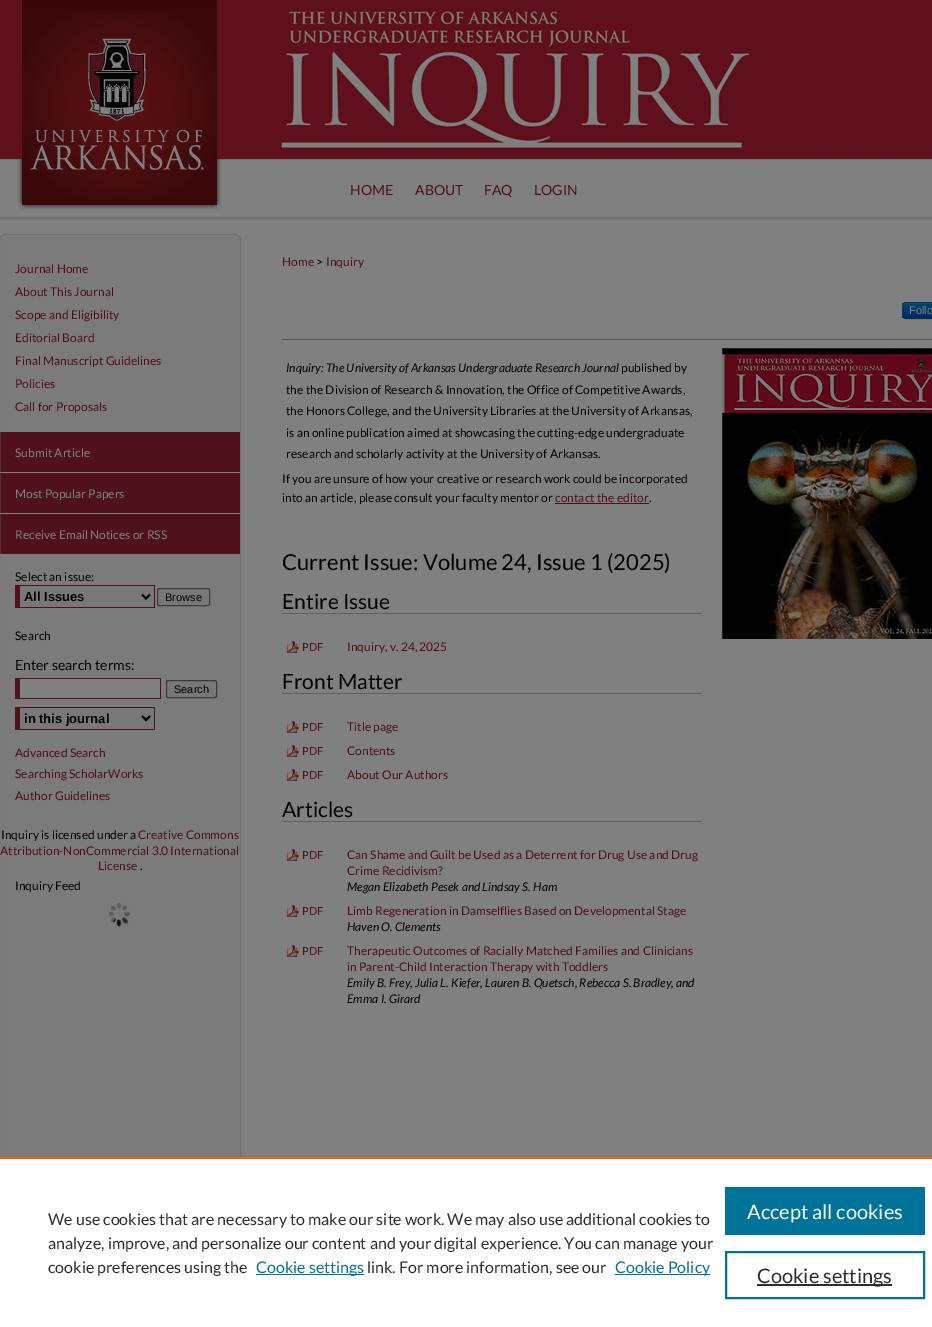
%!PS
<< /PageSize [932 1327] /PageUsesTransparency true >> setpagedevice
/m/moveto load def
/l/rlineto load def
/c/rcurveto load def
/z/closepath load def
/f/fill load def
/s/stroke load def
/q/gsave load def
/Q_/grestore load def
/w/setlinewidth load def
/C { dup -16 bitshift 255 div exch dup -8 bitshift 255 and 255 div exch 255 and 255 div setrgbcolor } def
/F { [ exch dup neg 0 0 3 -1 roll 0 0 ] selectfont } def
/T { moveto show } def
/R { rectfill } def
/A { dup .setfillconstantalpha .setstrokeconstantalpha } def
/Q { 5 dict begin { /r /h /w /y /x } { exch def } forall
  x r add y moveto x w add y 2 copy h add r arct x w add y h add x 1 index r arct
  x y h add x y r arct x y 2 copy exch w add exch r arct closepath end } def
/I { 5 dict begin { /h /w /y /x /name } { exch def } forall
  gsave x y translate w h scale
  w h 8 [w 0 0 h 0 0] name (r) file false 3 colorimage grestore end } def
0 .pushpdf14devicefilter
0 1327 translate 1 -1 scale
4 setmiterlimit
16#808080 C
0 0 932 1327 R
(1.rgb) 0 0 932 221 I
(2.rgb) 12 0 210 210 I
(3.rgb) 222 10 558 149 I
/Lato-Regular 14 F
16#4C0F19 C
(HOME) 350 195 T
(ABOUT) 415 195 T
(FAQ) 484 195 T
(LOGIN) 534 195 T
16#7B7B7B C
0 235 240 990 5 Q f
16#4F111B C
0 432 240 40 R
16#808080 C
0 472 240 1 R
16#4F111B C
0 473 240 40 R
16#808080 C
0 513 240 1 R
16#4F111B C
0 514 240 40 R
(4.rgb) 109 903 21 24 I
16#727272 C
-.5 234.5 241 991 5.5 Q s
/Lato-Regular 12 F
16#4C0F19 C
(Journal Home) 15 273 T
(About This Journal) 15 296 T
(Scope and Eligibility) 15 319 T
(Editorial Board) 15 342 T
(Final Manuscript Guidelines) 15 365 T
(Policies) 15 388 T
(Call for Proposals) 15 411 T
16#808080 C
(Submit Article) 15 457 T
(Most Popular Papers) 15 498 T
(Receive Email Notices or RSS) 15 539 T
16#000000 C
(Select an issue:) 15 581 T
16#787878 C
20 586 134 21 R
16#4F111B C
15 585 140 1 R
154 585 1 23 R
15 607 140 1 R
15 585 5 23 R
16#000000 C
2 w
142 594.5 m 4 4 l 4 -4 l s
/LiberationSans-Bold 13 F
(All Issues) 24 601 T
16#787878 C
157.5 588.5 52 17 1.5 Q q f Q_
16#3B3B3B C
1 w
s
/LiberationSans-Regular 11 F
16#000000 C
(Browse) 165 601 T
/Lato-Regular 12 F
(Search) 15 640 T
/Lato-Regular 14 F
(Enter search terms:) 15 670 T
16#808080 C
20 679 140 19 R
16#4F111B C
15 678 146 1 R
160 678 1 21 R
15 698 146 1 R
15 678 5 21 R
16#787878 C
166.5 680.5 50 17 1.5 Q q f Q_
16#3B3B3B C
s
/LiberationSans-Regular 11 F
16#000000 C
(Search) 174 693 T
16#787878 C
20 708 134 21 R
16#4F111B C
15 707 140 1 R
154 707 1 23 R
15 729 140 1 R
15 707 5 23 R
16#000000 C
2 w
142 716 m 4 4 l 4 -4 l s
/LiberationSans-Bold 13 F
(in this journal) 24 723 T
/Lato-Regular 12 F
16#4C0F19 C
(Advanced Search) 15 757 T
(Searching ScholarWorks) 15 778 T
(Author Guidelines) 15 800 T
16#000000 C
(Inquiry is licensed under a) 1 839 T
16#4C0F19 C
(Creative Commons) 138 839 T
(Attribution-NonCommercial 3.0 International) 0 855 T
(License) 98 870 T
16#000000 C
(.) 140 870 T
(Inquiry Feed) 15 890 T
16#4C0F19 C
(Home) 282 266 T
16#000000 C
(>) 316 266 T
16#4C0F19 C
(Inquiry) 326 266 T
16#003A66 C
902 302 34 17 4 Q f
q
902 302 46 17 4 Q clip newpath
q 902 303 m 30 0 l 0 15 l -30 0 l z clip newpath
<< /ShadingType 2 /ColorSpace /DeviceRGB /Coords [925 303 925 318] /Extend [true true] /Function << /FunctionType 2 /Domain [0 1] /C0 [0 .267 .4] /C1 [0 .169 .4] /N 1 >> >> shfill Q_
Q_
16#1A4F6B C
906 304 m 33 0 l 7 0 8 0 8 6 c 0 6 l 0 -7 l 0 -7 -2 -6 -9 -6 c -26 0 l -7 0 -9 -1 -9 6 c 0 8 l 0 -3 -2 -13 3 -13 c z f
0.25 A
16#000000 C
1 w
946.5 317.5 m -.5 .5 -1.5 1 -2.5 1 c -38 0 l -1 0 -2 -.5 -2.5 -1 c s
0.1 A
903.5 317.5 m -1.5 -2 -1 -5 -1 -7 c 0 -9 .5 -8 10 -8 c 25 0 l 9.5 0 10 -1 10 8 c 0 2 .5 5 -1 7 c s
/LiberationSans-Regular 11 F
1 A
16#808080 C
(Follo) 909 314 T
16#555555 C
282 339 650 1 R
/Lato-Italic 12 F
16#000000 C
(Inquiry: The University of Arkansas Undergraduate Research Journal) 286 372 T
/Lato-Regular 12 F
(published by) 621 372 T
(the the Division of Research & Innovation, the Office of Competitive Awards,) 286 394 T
(the Honors College, and the University Libraries at the University of Arkansas,) 286 415 T
(is an online publication aimed at showcasing the cutting-edge undergraduate) 286 437 T
(research and scholarly activity at the University of Arkansas.) 286 458 T
(If you are unsure of how your creative or research work could be incorporated) 282 483 T
(into an article, please consult your faculty mentor or) 282 502 T
16#4C0F19 C
(contact the editor) 555 502 T
555 503 94 1 R
16#000000 C
(.) 649 502 T
/Lato-Regular 22 F
(Current Issue: Volume 24, Issue 1 \(2025\)) 282 570 T
16#606060 C
282 613 420 1 R
/Lato-Regular 21 F
16#000000 C
(Entire Issue) 282 609 T
(5.rgb) 287 641 12 12 I
/Lato-Regular 11 F
16#4C0F19 C
(PDF) 302 651 T
/Lato-Regular 12 F
(Inquiry, v. 24, 2025) 347 651 T
16#606060 C
282 693 420 1 R
/Lato-Regular 21 F
16#000000 C
(Front Matter) 282 689 T
(5.rgb) 287 721 12 12 I
/Lato-Regular 11 F
16#4C0F19 C
(PDF) 302 731 T
/Lato-Regular 12 F
(Title page) 347 731 T
(5.rgb) 287 745 12 12 I
/Lato-Regular 11 F
(PDF) 302 755 T
/Lato-Regular 12 F
(Contents) 347 755 T
(5.rgb) 287 769 12 12 I
/Lato-Regular 11 F
(PDF) 302 779 T
/Lato-Regular 12 F
(About Our Authors) 347 779 T
16#606060 C
282 821 420 1 R
/Lato-Regular 21 F
16#000000 C
(Articles) 282 817 T
(5.rgb) 287 849 12 12 I
/Lato-Regular 11 F
16#4C0F19 C
(PDF) 302 859 T
/Lato-Regular 12 F
(Can Shame and Guilt be Used as a Deterrent for Drug Use and Drug) 347 859 T
(Crime Recidivism?) 347 875 T
/Lato-Italic 12 F
16#000000 C
(Megan Elizabeth Pesek and Lindsay S. Ham) 347 891 T
(5.rgb) 287 905 12 12 I
/Lato-Regular 11 F
16#4C0F19 C
(PDF) 302 915 T
/Lato-Regular 12 F
(Limb Regeneration in Damselflies Based on Developmental Stage) 347 915 T
/Lato-Italic 12 F
16#000000 C
(Haven O. Clements) 347 931 T
(5.rgb) 287 945 12 12 I
/Lato-Regular 11 F
16#4C0F19 C
(PDF) 302 955 T
/Lato-Regular 12 F
(Therapeutic Outcomes of Racially Matched Families and Clinicians) 347 955 T
(in Parent-Child Interaction Therapy with Toddlers) 347 971 T
/Lato-Italic 12 F
16#000000 C
(Emily B. Frey, Julia L. Kiefer, Lauren B. Quetsch, Rebecca S. Bradley, and) 347 987 T
(Emma I. Girard) 347 1003 T
(6.rgb) 721 348 211 291 I
16#FFFFFF C
0 1159 932 168 R
16#EB6500 C
0 1157 932 2 R
/Lato-Regular 16 F
16#2E2E2E C
(We use cookies that are necessary to make our site work. We may also use additional cookies to) 48 1225 T
(analyze, improve, and personalize our content and your digital experience. You can manage your) 48 1249 T
(cookie preferences using the) 48 1273 T
16#007398 C
256 1274 108 1 R
(Cookie settings) 256 1273 T
16#2E2E2E C
(link. For more information, see our) 367 1273 T
16#007398 C
615 1274 95 1 R
(Cookie Policy) 615 1273 T
725 1187 200 48 R
/Lato-Regular 20 F
16#FFFFFF C
(Accept all cookies) 747 1219 T
16#007398 C
2 w
726 1252 198 46 rectstroke
16#2E2E2E C
757 1284 135 2 R
(Cookie settings) 757 1283 T
.poppdf14devicefilter showpage
